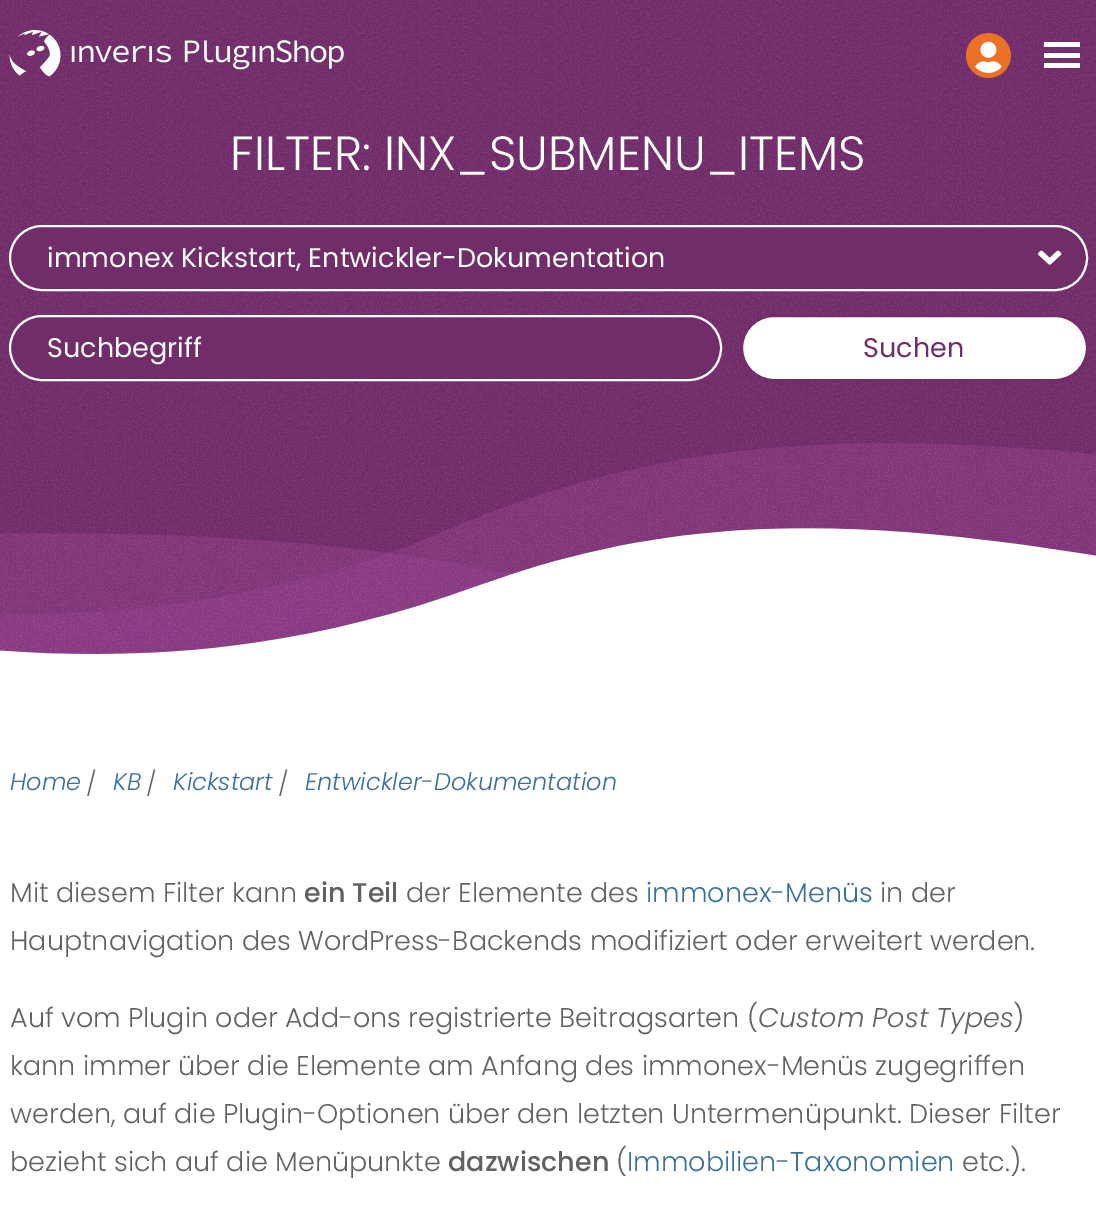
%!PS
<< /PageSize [1096 1209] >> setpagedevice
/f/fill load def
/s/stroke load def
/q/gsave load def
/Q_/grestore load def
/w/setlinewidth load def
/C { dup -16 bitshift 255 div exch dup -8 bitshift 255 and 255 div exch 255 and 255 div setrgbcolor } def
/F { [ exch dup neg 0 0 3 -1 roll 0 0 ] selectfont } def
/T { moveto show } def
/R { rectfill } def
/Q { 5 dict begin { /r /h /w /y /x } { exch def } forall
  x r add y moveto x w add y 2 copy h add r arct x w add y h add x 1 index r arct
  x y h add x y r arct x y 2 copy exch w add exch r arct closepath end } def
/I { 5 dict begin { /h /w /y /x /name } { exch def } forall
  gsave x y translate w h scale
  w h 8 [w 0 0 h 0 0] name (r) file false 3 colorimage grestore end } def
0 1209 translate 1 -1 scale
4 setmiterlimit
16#FFFFFF C
0 0 1096 1209 R
(1.rgb) 0 0 1096 105 I
(2.rgb) 9 30 335 47 I
(3.rgb) 965 33 46 45 I
1044 53 36 5 R
1044 42 36 5 R
1044 63 36 5 R
(4.rgb) 0 105 1096 330 I
/Poppins-Light 48 F
(FILTER: INX_SUBMENU_ITEMS) 230 170 T
16#712D6A C
9 225 1079 66 33 Q f
(5.rgb) 1038 250 24 15 I
16#FFFFFF C
2 w
10 226 1077 64 32 Q s
/Poppins-Regular 27 F
(immonex Kickstart, Entwickler-Dokumentation) 47 267 T
16#712D6A C
10 316 711 64 32 Q q f Q_
16#FFFFFF C
s
(Suchbegriff) 47 357 T
742 316 345 64 32 Q q f Q_
16#712D6A C
s
(Suchen) 863 357 T
(6.rgb) 0 435 1096 219 I
/Poppins-LightItalic 24 F
16#3A7199 C
(Home) 10 790 T
/Poppins-Light 24 F
16#636260 C
(/) 86 792 T
/Poppins-LightItalic 24 F
16#3A7199 C
(KB) 113 790 T
/Poppins-Light 24 F
16#636260 C
(/) 146 792 T
/Poppins-LightItalic 24 F
16#3A7199 C
(Kickstart) 173 790 T
/Poppins-Light 24 F
16#636260 C
(/) 278 792 T
/Poppins-LightItalic 24 F
16#3A7199 C
(Entwickler-Dokumentation) 305 790 T
/Poppins-Light 27 F
16#636260 C
(Mit diesem Filter kann) 10 902 T
/Poppins-Medium 27 F
(ein Teil) 304 902 T
/Poppins-Light 27 F
(der Elemente des) 406 902 T
16#3A7199 C
(immonex-Menüs) 646 902 T
16#636260 C
(in der) 880 902 T
(Hauptnavigation des WordPress-Backends modifiziert oder erweitert werden.) 10 950 T
(Auf vom Plugin oder Add-ons registrierte Beitragsarten \() 10 1027 T
/Poppins-LightItalic 27 F
(Custom Post Types) 758 1027 T
/Poppins-Light 27 F
(\)) 1013 1027 T
(kann immer über die Elemente am Anfang des immonex-Menüs zugegriffen) 10 1075 T
(werden, auf die Plugin-Optionen über den letzten Untermenüpunkt. Dieser Filter) 10 1123 T
(bezieht sich auf die Menüpunkte) 10 1171 T
/Poppins-Medium 27 F
(dazwischen) 448 1171 T
/Poppins-Light 27 F
(\() 616 1171 T
16#3A7199 C
(Immobilien-Taxonomien) 627 1171 T
16#636260 C
(etc.\).) 962 1171 T
showpage
